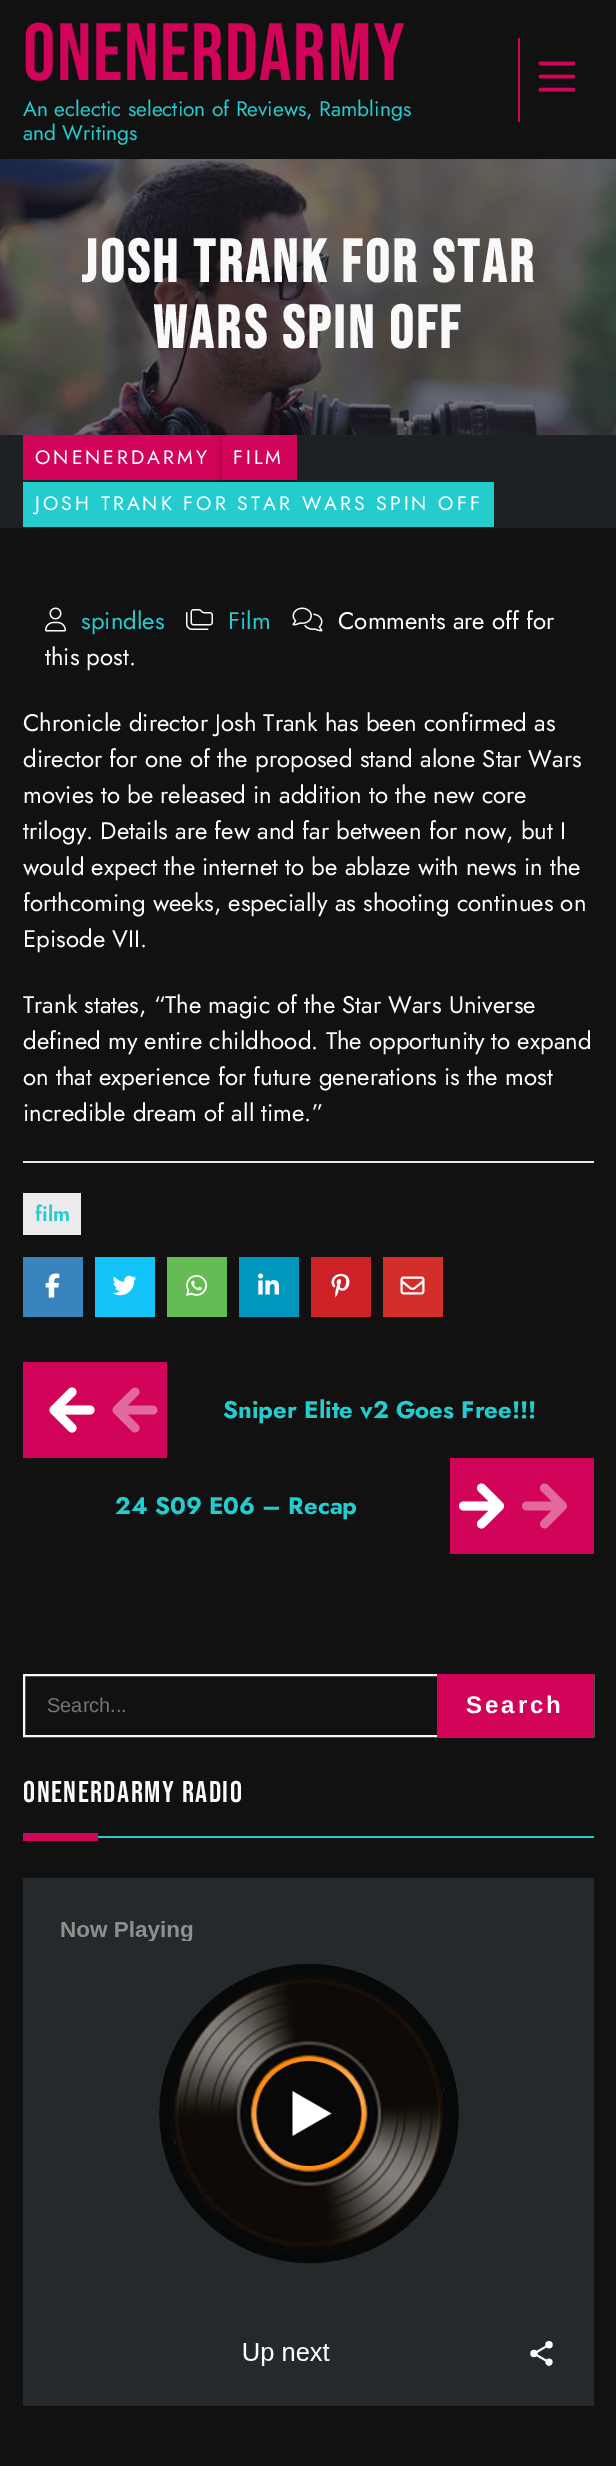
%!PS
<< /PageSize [616 2466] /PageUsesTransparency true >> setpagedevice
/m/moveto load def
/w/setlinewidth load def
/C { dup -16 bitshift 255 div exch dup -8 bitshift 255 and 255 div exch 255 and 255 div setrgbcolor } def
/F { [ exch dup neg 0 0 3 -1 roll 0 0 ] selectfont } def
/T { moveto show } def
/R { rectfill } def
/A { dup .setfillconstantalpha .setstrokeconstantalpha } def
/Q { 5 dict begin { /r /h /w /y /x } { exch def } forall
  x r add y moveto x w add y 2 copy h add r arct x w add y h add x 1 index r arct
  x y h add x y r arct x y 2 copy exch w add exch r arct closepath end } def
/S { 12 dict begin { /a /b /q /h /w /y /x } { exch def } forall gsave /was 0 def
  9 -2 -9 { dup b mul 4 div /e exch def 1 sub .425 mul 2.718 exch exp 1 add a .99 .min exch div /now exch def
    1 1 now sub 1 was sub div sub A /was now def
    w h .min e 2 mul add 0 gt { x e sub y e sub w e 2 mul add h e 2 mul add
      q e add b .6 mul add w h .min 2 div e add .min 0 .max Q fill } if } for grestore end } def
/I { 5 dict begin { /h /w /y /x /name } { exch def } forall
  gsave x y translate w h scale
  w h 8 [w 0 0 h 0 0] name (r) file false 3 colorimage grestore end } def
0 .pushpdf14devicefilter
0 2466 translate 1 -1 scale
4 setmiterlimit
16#111111 C
0 0 616 2466 R
/BebasNeue-Regular 81 F
16#D10459 C
23 80 m 1.5 0 (ONENERDARMY) ashow
/Jost-Regular 21 F
16#24CCCE C
(An eclectic selection of Reviews, Ramblings) 23 116 T
(and Writings) 23 140 T
16#D10459 C
518 38 2 84 R
(1.rgb) 538 61 38 31 I
(2.rgb) 0 159 616 276 I
/BebasNeue-Bold 60 F
16#FAF9F9 C
81 282 m 3 0 (JOSH TRANK FOR STAR) ashow
153 348 m 3 0 (WARS SPIN OFF) ashow
16#1E2124 C
0 435 616 93 R
16#D10459 C
23 435 199 45 R
/Jost-Regular 19.5 F
16#FFFFFF C
35 464 m 3 0 (ONENERDARMY) ashow
16#000000 C
222 438 75 45 0 4 .26 S
16#D10459 C
222 435 75 45 R
16#FFFFFF C
233 464 m 3 0 (FILM) ashow
16#24CCCE C
23 482 471 45 R
16#FFFFFF C
35 510 m 3 0 (JOSH TRANK FOR STAR WARS SPIN OFF) ashow
(3.rgb) 292 607 31 25 I
/Jost-Regular 24 F
(Comments are off for) 338 629 T
(this post.) 45 665 T
(4.rgb) 45 607 21 25 I
16#24CCCE C
(spindles) 81 629 T
(5.rgb) 186 609 27 21 I
(Film) 228 629 T
16#FFFFFF C
(Chronicle director Josh Trank has been confirmed as) 23 731 T
(director for one of the proposed stand alone Star Wars) 23 767 T
(movies to be released in addition to the new core) 23 803 T
(trilogy. Details are few and far between for now, but I) 23 839 T
(would expect the internet to be ablaze with news in the) 23 875 T
(forthcoming weeks, especially as shooting continues on) 23 911 T
(Episode VII.) 23 947 T
(Trank states, “The magic of the Star Wars Universe) 23 1013 T
(defined my entire childhood. The opportunity to expand) 23 1049 T
(on that experience for future generations is the most) 23 1085 T
(incredible dream of all time.”) 23 1121 T
16#E7E7E7 C
23 1161 571 2 R
16#ECECEC C
23 1193 58 42 R
/Jost-SemiBold 21 F
16#24CCCE C
(film) 35 1221 T
16#3984BD C
23 1257 60 60 R
(6.rgb) 45 1273 15 25 I
16#12C4F7 C
95 1257 60 60 R
(7.rgb) 112 1275 25 21 I
16#65BC54 C
167 1257 60 60 R
(8.rgb) 186 1275 21 21 I
16#0097BF C
239 1257 60 60 R
(9.rgb) 258 1273 21 22 I
16#CD2127 C
311 1257 60 60 R
(10.rgb) 331 1273 19 25 I
16#D32E2A C
383 1257 60 60 R
(11.rgb) 400 1276 25 19 I
16#D10459 C
23 1362 144 96 R
(12.rgb) 49 1387 46 46 I
(13.rgb) 49 1387 109 46 I
/Jost-Bold 24 F
16#24CCCE C
(Sniper Elite v2 Goes Free!!!) 223 1418 T
(24 S09 E06 – Recap) 115 1514 T
16#D10459 C
450 1458 144 96 R
(14.rgb) 459 1483 45 46 I
(15.rgb) 459 1483 108 46 I
16#FAF9F9 C
2 w
24 1675 569 61 rectstroke
/LiberationSans-Regular 20 F
16#757575 C
(Search...) 47 1712 T
16#D10459 C
437 1674 157 63 R
/LiberationSans-Bold 24 F
16#FFFFFF C
466 1713 m 3 0 (Search) ashow
/BebasNeue-Regular 30 F
16#FAF9F9 C
23 1802 m 1.5 0 (OneNerdArmy Radio) ashow
16#D10459 C
23 1833 75 8 R
16#24CCCE C
98 1836 496 2 R
(16.rgb) 22 1878 572 528 I
.poppdf14devicefilter showpage
